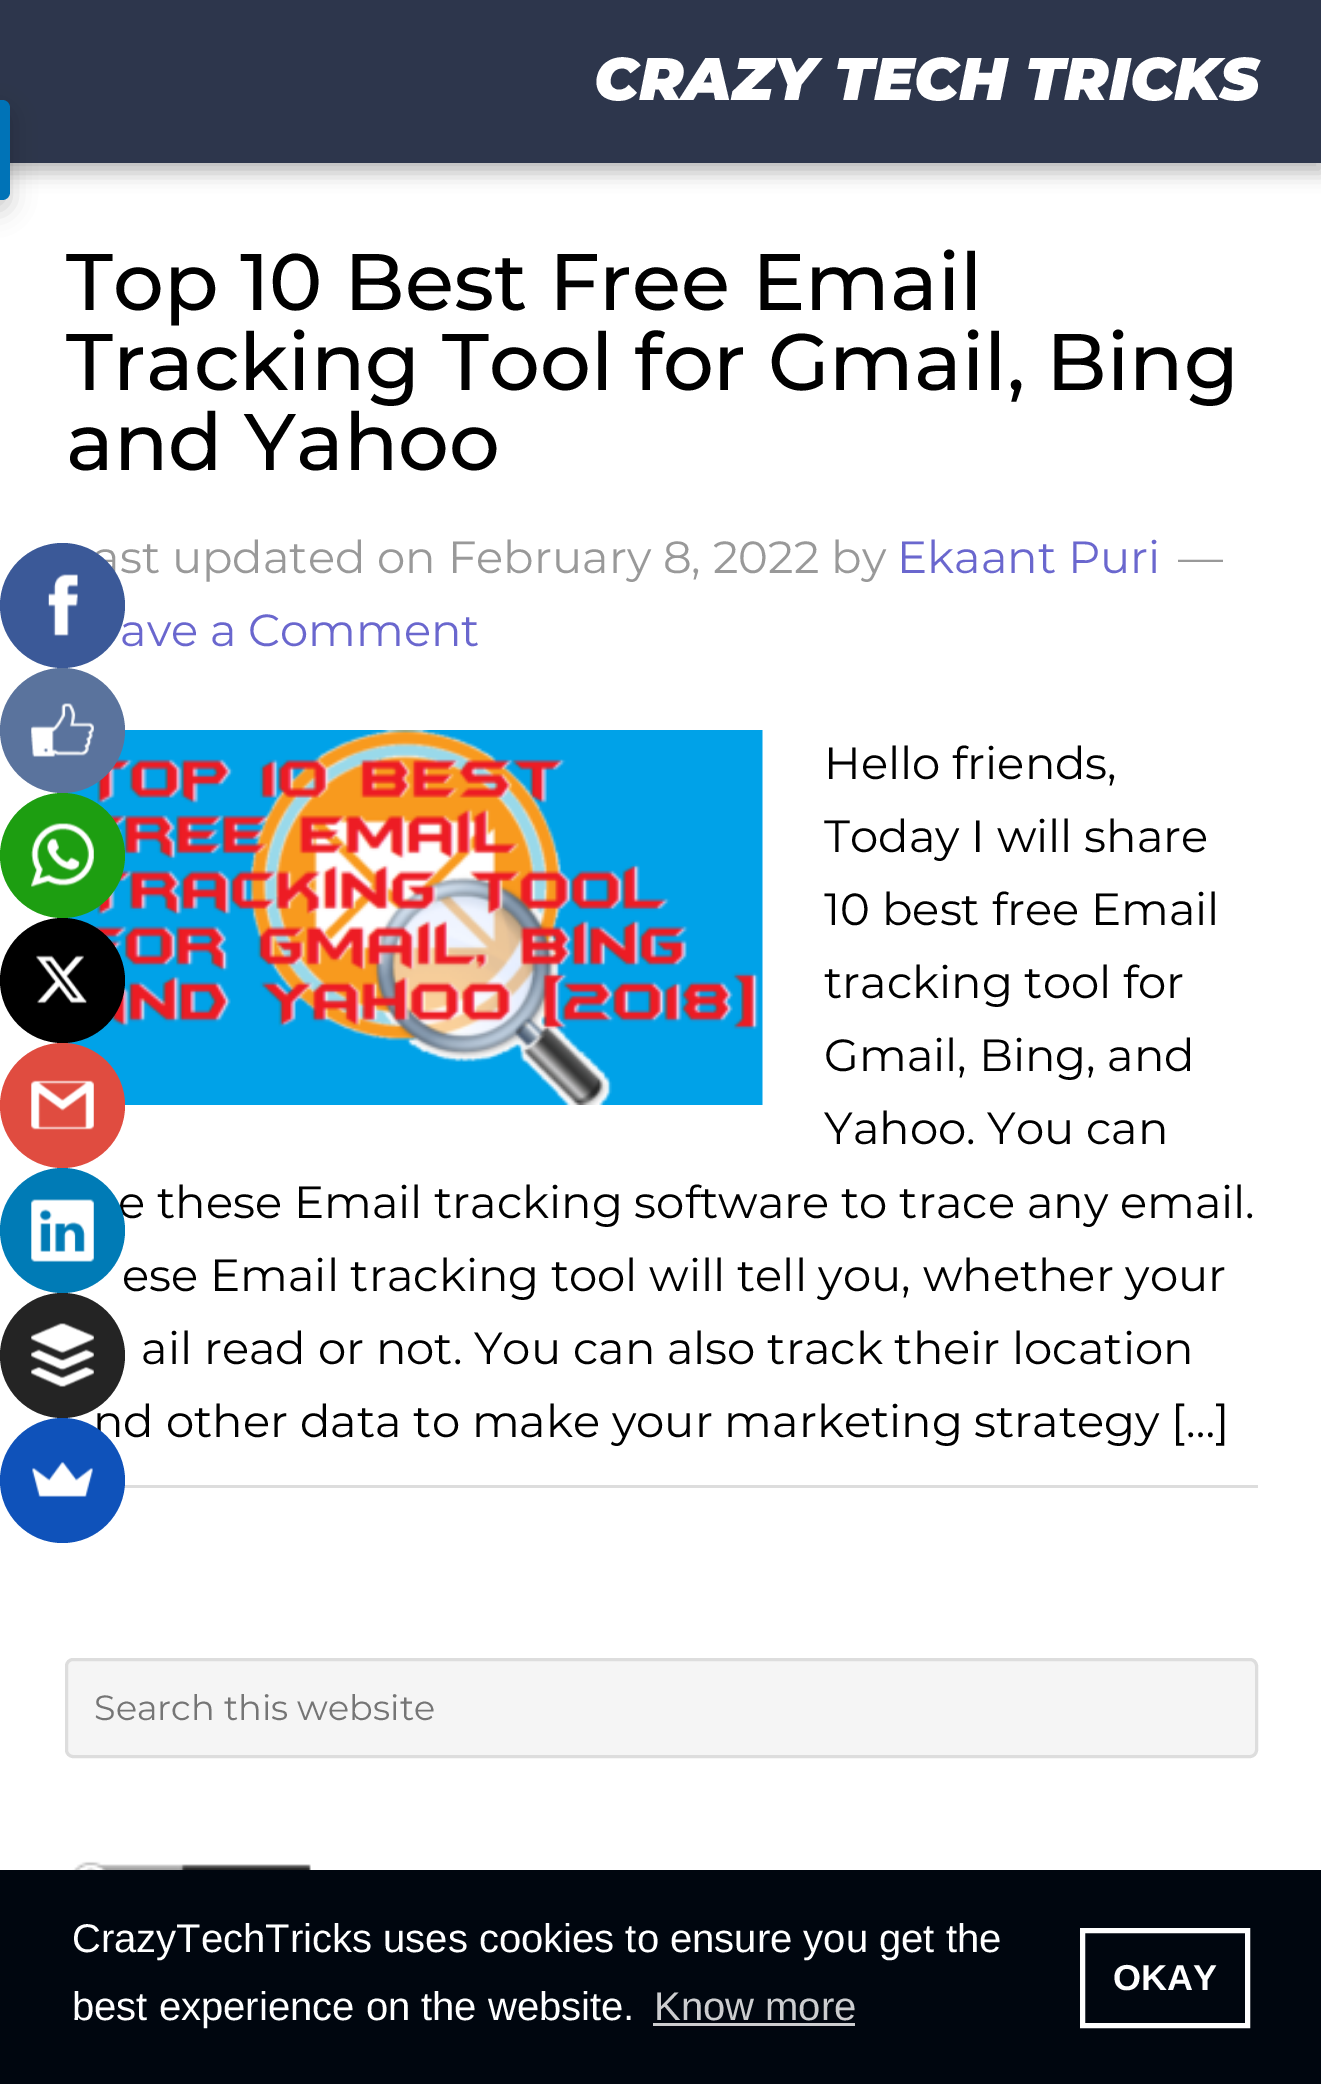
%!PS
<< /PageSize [1321 2084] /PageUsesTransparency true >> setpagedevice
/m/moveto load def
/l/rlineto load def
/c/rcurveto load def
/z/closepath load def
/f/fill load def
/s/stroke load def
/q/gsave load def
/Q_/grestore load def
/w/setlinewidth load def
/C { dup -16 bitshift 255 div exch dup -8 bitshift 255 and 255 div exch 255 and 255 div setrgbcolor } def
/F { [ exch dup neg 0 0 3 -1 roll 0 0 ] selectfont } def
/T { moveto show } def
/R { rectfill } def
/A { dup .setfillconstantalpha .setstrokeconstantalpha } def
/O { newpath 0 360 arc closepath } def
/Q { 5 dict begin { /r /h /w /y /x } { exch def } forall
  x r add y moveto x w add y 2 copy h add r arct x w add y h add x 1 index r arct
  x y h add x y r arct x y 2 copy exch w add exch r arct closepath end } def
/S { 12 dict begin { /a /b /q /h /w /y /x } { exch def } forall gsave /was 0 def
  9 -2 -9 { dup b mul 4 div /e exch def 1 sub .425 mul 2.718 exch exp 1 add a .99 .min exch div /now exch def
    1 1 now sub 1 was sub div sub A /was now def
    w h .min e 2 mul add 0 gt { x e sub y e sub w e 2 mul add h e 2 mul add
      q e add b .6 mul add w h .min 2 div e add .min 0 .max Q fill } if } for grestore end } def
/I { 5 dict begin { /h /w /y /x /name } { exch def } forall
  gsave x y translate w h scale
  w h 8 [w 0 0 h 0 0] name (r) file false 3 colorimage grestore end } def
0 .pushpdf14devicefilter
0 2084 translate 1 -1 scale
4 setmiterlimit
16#FFFFFF C
0 0 1321 2084 R
16#000000 C
0 10 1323 163 0 9 .26 S
16#2D364C C
0 0 1321 163 R
16#000000 C
-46 110 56 100 8 12.5 .2 S
16#0073B7 C
-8 100 m 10 0 l 4.5 0 8 3.5 8 8 c 0 84 l 0 4.5 -3.5 8 -8 8 c -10 0 l z f
/Montserrat-ThinItalic 60 F
16#FFFFFF C
(CRAZY TECH TRICKS) 594 100 T
/Montserrat-Medium 80 F
16#000000 C
(Top 10 Best Free Email) 66 310 T
(Tracking Tool for Gmail, Bing) 66 390 T
(and Yahoo) 66 470 T
/Montserrat-Regular 45 F
16#999999 C
(ast updated on February 8, 2022 by) 93 573 T
16#6A67CE C
(Ekaant Puri) 897 573 T
16#999999 C
(—) 1178 573 T
16#6A67CE C
(ave a Comment) 120 646 T
(1.rgb) 65 730 698 375 I
16#000000 C
(Hello friends,) 824 779 T
(Today I will share) 824 852 T
(10 best free Email) 824 925 T
(tracking tool for) 824 998 T
(Gmail, Bing, and) 824 1071 T
(Yahoo. You can) 824 1144 T
(e these Email tracking software to trace any email.) 118 1218 T
(ese Email tracking tool will tell you, whether your) 122 1291 T
(ail read or not. You can also track their location) 141 1364 T
(nd other data to make your marketing strategy […]) 93 1437 T
16#DDDDDD C
124 1485 1134 3 R
16#F5F5F5 C
66.5 1659.5 1190 97 6.5 Q q f Q_
16#DDDDDD C
3 w
s
/Montserrat-Regular 35 F
16#757575 C
(Search this website) 94 1720 T
(2.rgb) 72 1861 239 9 I
16#3B5998 C
62.5 605.5 62.5 O f
(3.rgb) 48 574 30 62 I
16#5A739D C
62.5 730.5 62.5 O f
(4.rgb) 31 703 63 54 I
16#1D9E11 C
62.5 855.5 62.5 O f
(5.rgb) 31 823 63 64 I
16#000000 C
62.5 980.5 62.5 O f
(6.rgb) 36 955 51 49 I
16#E04C40 C
62.5 1105.5 62.5 O f
(7.rgb) 31 1080 63 50 I
16#007BB6 C
62.5 1230.5 62.5 O f
(8.rgb) 31 1199 63 63 I
16#242424 C
62.5 1355.5 62.5 O f
(9.rgb) 31 1323 63 64 I
16#0F52BA C
62.5 1480.5 62.5 O f
(10.rgb) 32 1461 61 36 I
16#00060F C
0 1870 1321 214 R
/LiberationSans-Regular 40 F
16#FFFFFF C
(CrazyTechTricks uses cookies to ensure you get the) 72 1952 T
(best experience on the website.) 72 2020 T
16#CCCDCF C
(Know more) 654 2020 T
653 2023 202 3 R
16#FFFFFF C
5 w
1082.5 1930.5 165 95 rectstroke
/LiberationSans-Bold 36 F
(OKAY) 1113 1990 T
.poppdf14devicefilter showpage
